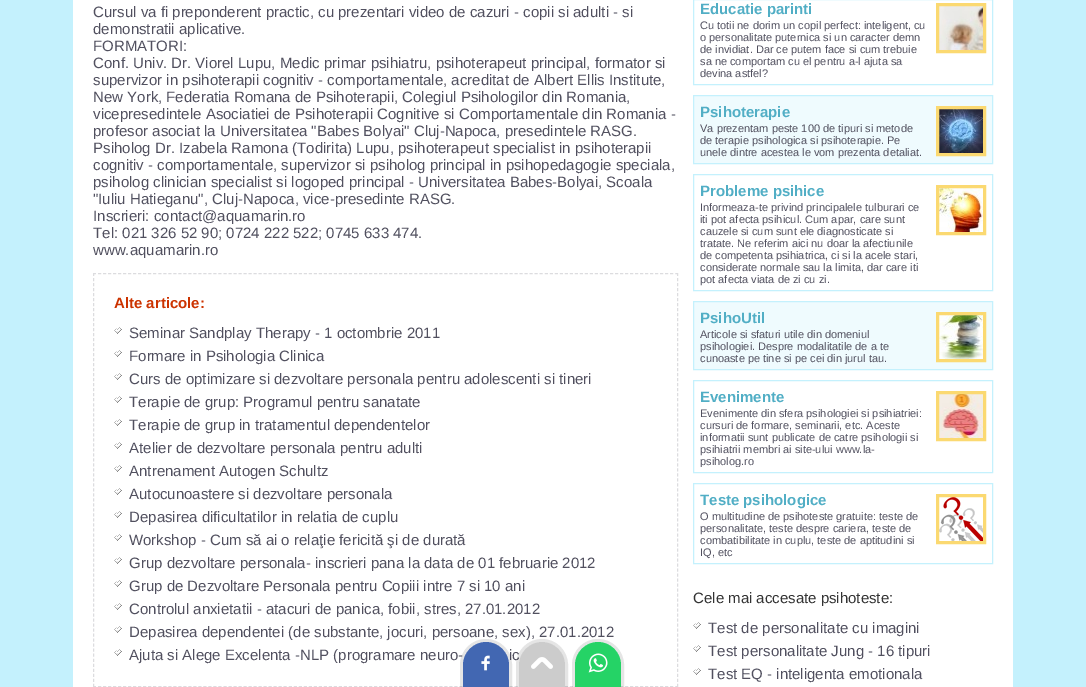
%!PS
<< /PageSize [1086 687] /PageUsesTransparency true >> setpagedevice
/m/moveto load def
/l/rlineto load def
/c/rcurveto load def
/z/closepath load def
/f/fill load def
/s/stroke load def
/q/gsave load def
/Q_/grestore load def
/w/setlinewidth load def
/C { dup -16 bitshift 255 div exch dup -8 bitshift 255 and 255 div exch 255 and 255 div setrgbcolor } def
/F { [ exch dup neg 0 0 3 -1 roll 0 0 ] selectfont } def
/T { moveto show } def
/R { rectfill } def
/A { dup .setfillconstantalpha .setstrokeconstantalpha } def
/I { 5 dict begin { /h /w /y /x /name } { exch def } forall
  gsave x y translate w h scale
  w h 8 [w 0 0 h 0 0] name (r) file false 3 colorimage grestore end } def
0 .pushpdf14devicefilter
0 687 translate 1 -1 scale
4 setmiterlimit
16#C4F1FD C
0 0 1086 687 R
16#FFFFFF C
73 0 940 687 R
/LiberationSans-Regular 15 F
16#51505F C
(Cursul va fi preponderent practic, cu prezentari video de cazuri - copii si adulti - si) 93 17 T
(demonstratii aplicative.) 93 34 T
(FORMATORI:) 93 51 T
(Conf. Univ. Dr. Viorel Lupu, Medic primar psihiatru, psihoterapeut principal, formator si) 93 68 T
(supervizor in psihoterapii cognitiv - comportamentale, acreditat de Albert Ellis Institute,) 93 85 T
(New York, Federatia Romana de Psihoterapii, Colegiul Psihologilor din Romania,) 93 102 T
(vicepresedintele Asociatiei de Psihoterapii Cognitive si Comportamentale din Romania -) 93 119 T
(profesor asociat la Universitatea "Babes Bolyai" Cluj-Napoca, presedintele RASG.) 93 136 T
(Psiholog Dr. Izabela Ramona \(Todirita\) Lupu, psihoterapeut specialist in psihoterapii) 93 153 T
(cognitiv - comportamentale, supervizor si psiholog principal in psihopedagogie speciala,) 93 170 T
(psiholog clinician specialist si logoped principal - Universitatea Babes-Bolyai, Scoala) 93 187 T
("Iuliu Hatieganu", Cluj-Napoca, vice-presedinte RASG.) 93 204 T
(Inscrieri: contact@aquamarin.ro) 93 221 T
(Tel: 021 326 52 90; 0724 222 522; 0745 633 474.) 93 238 T
(www.aquamarin.ro) 93 255 T
16#DCDCDF C
[3 2.02] 0 setdash
93 273.5 m 585 0 l s
[3 2.01] 0 setdash
677.5 273 m 0 414 l s
[3 2.02] 0 setdash
93 686.5 m 585 0 l s
[3 2.01] 0 setdash
93.5 273 m 0 414 l s
/LiberationSans-Bold 15 F
16#CC3300 C
(Alte articole:) 114 308 T
(1.rgb) 114 327 8 7 I
/LiberationSans-Regular 15 F
16#51505F C
(Seminar Sandplay Therapy - 1 octombrie 2011) 129 338 T
(1.rgb) 114 350 8 7 I
(Formare in Psihologia Clinica) 129 361 T
(1.rgb) 114 373 8 7 I
(Curs de optimizare si dezvoltare personala pentru adolescenti si tineri) 129 384 T
(1.rgb) 114 396 8 7 I
(Terapie de grup: Programul pentru sanatate) 129 407 T
(1.rgb) 114 419 8 7 I
(Terapie de grup in tratamentul dependentelor) 129 430 T
(1.rgb) 114 442 8 7 I
(Atelier de dezvoltare personala pentru adulti) 129 453 T
(1.rgb) 114 465 8 7 I
(Antrenament Autogen Schultz) 129 476 T
(1.rgb) 114 488 8 7 I
(Autocunoastere si dezvoltare personala) 129 499 T
(1.rgb) 114 511 8 7 I
(Depasirea dificultatilor in relatia de cuplu) 129 522 T
(1.rgb) 114 534 8 7 I
(Workshop - Cum să ai o relaţie fericită şi de durată) 129 545 T
(1.rgb) 114 557 8 7 I
(Grup dezvoltare personala- inscrieri pana la data de 01 februarie 2012) 129 568 T
(1.rgb) 114 580 8 7 I
(Grup de Dezvoltare Personala pentru Copiii intre 7 si 10 ani) 129 591 T
(1.rgb) 114 603 8 7 I
(Controlul anxietatii - atacuri de panica, fobii, stres, 27.01.2012) 129 614 T
(1.rgb) 114 626 8 7 I
(Depasirea dependentei \(de substante, jocuri, persoane, sex\), 27.01.2012) 129 637 T
(1.rgb) 114 649 8 7 I
(Ajuta si Alege Excelenta -NLP \(programare neuro-) 129 660 T
(ic) 509 660 T
16#C4F1FD C
[] 0 setdash
693.5 -.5 299 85 rectstroke
/LiberationSans-Bold 15 F
16#51AEC5 C
(Educatie parinti) 700 14 T
(2.rgb) 939 6 44 44 I
16#FBD971 C
3 w
937.5 4.5 47 47 rectstroke
/LiberationSans-Regular 11 F
16#51505F C
(Cu totii ne dorim un copil perfect: inteligent, cu) 700 29 T
(o personalitate puternica si un caracter demn) 700 41 T
(de invidiat. Dar ce putem face si cum trebuie) 700 53 T
(sa ne comportam cu el pentru a-l ajuta sa) 700 65 T
(devina astfel?) 700 77 T
16#EFFBFE C
693.5 95.5 m 299 0 l 0 68 l -299 0 l z q f Q_
16#C4F1FD C
1 w
s
/LiberationSans-Bold 15 F
16#51AEC5 C
(Psihoterapie) 700 117 T
(3.rgb) 939 109 44 44 I
16#FBD971 C
3 w
937.5 107.5 47 47 rectstroke
/LiberationSans-Regular 11 F
16#51505F C
(Va prezentam peste 100 de tipuri si metode) 700 132 T
(de terapie psihologica si psihoterapie. Pe) 700 144 T
(unele dintre acestea le vom prezenta detaliat.) 700 156 T
16#C4F1FD C
1 w
693.5 174.5 299 116 rectstroke
/LiberationSans-Bold 15 F
16#51AEC5 C
(Probleme psihice) 700 196 T
(4.rgb) 939 188 44 44 I
16#FBD971 C
3 w
937.5 186.5 47 47 rectstroke
/LiberationSans-Regular 11 F
16#51505F C
(Informeaza-te privind principalele tulburari ce) 700 211 T
(iti pot afecta psihicul. Cum apar, care sunt) 700 223 T
(cauzele si cum sunt ele diagnosticate si) 700 235 T
(tratate. Ne referim aici nu doar la afectiunile) 700 247 T
(de competenta psihiatrica, ci si la acele stari,) 700 259 T
(considerate normale sau la limita, dar care iti) 700 271 T
(pot afecta viata de zi cu zi.) 700 283 T
16#EFFBFE C
693.5 301.5 m 299 0 l 0 68 l -299 0 l z q f Q_
16#C4F1FD C
1 w
s
/LiberationSans-Bold 15 F
16#51AEC5 C
(PsihoUtil) 700 323 T
(5.rgb) 939 315 44 44 I
16#FBD971 C
3 w
937.5 313.5 47 47 rectstroke
/LiberationSans-Regular 11 F
16#51505F C
(Articole si sfaturi utile din domeniul) 700 338 T
(psihologiei. Despre modalitatile de a te) 700 350 T
q
700 328 226 36 rectclip
(cunoaste pe tine si pe cei din jurul tau.) 700 362 T
Q_
16#C4F1FD C
1 w
693.5 380.5 299 92 rectstroke
/LiberationSans-Bold 15 F
16#51AEC5 C
(Evenimente) 700 402 T
(6.rgb) 939 394 44 44 I
16#FBD971 C
3 w
937.5 392.5 47 47 rectstroke
/LiberationSans-Regular 11 F
16#51505F C
(Evenimente din sfera psihologiei si psihiatriei:) 700 417 T
(cursuri de formare, seminarii, etc. Aceste) 700 429 T
(informatii sunt publicate de catre psihologii si) 700 441 T
(psihiatrii membri ai site-ului www.la-) 700 453 T
q
700 407 226 60 rectclip
(psiholog.ro) 700 465 T
Q_
16#C4F1FD C
1 w
693.5 483.5 299 80 rectstroke
/LiberationSans-Bold 15 F
16#51AEC5 C
(Teste psihologice) 700 505 T
(7.rgb) 939 497 44 44 I
16#FBD971 C
3 w
937.5 495.5 47 47 rectstroke
/LiberationSans-Regular 11 F
16#51505F C
(O multitudine de psihoteste gratuite: teste de) 700 520 T
(personalitate, teste despre cariera, teste de) 700 532 T
(combatibilitate in cuplu, teste de aptitudini si) 700 544 T
(IQ, etc) 700 556 T
/LiberationSans-Regular 15 F
16#333333 C
(Cele mai accesate psihoteste:) 693 603 T
(1.rgb) 693 622 8 7 I
16#51505F C
(Test de personalitate cu imagini) 708 633 T
(1.rgb) 693 645 8 7 I
(Test personalitate Jung - 16 tipuri) 708 656 T
(1.rgb) 693 668 8 7 I
(Test EQ - inteligenta emotionala) 708 679 T
0.1 A
16#000000 C
486 640.5 m 13.5 0 24.5 11 24.5 24.5 c 0 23.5 l -49 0 l 0 -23.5 l 0 -13.5 11 -24.5 24.5 -24.5 c z s
1 A
16#4267B2 C
486 642 m 12.5 0 23 10.5 23 23 c 0 22 l -46 0 l 0 -22 l 0 -12.5 10.5 -23 23 -23 c z f
(8.rgb) 481 655 9 16 I
0.1 A
16#000000 C
542 640.5 m 13.5 0 24.5 11 24.5 24.5 c 0 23.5 l -49 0 l 0 -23.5 l 0 -13.5 11 -24.5 24.5 -24.5 c z s
1 A
16#CCCCCC C
542 642 m 12.5 0 23 10.5 23 23 c 0 22 l -46 0 l 0 -22 l 0 -12.5 10.5 -23 23 -23 c z f
(9.rgb) 531 657 22 12 I
0.1 A
16#000000 C
598 640.5 m 13.5 0 24.5 11 24.5 24.5 c 0 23.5 l -49 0 l 0 -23.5 l 0 -13.5 11 -24.5 24.5 -24.5 c z s
1 A
16#25D366 C
598 642 m 12.5 0 23 10.5 23 23 c 0 22 l -46 0 l 0 -22 l 0 -12.5 10.5 -23 23 -23 c z f
(10.rgb) 588 653 20 20 I
.poppdf14devicefilter showpage
